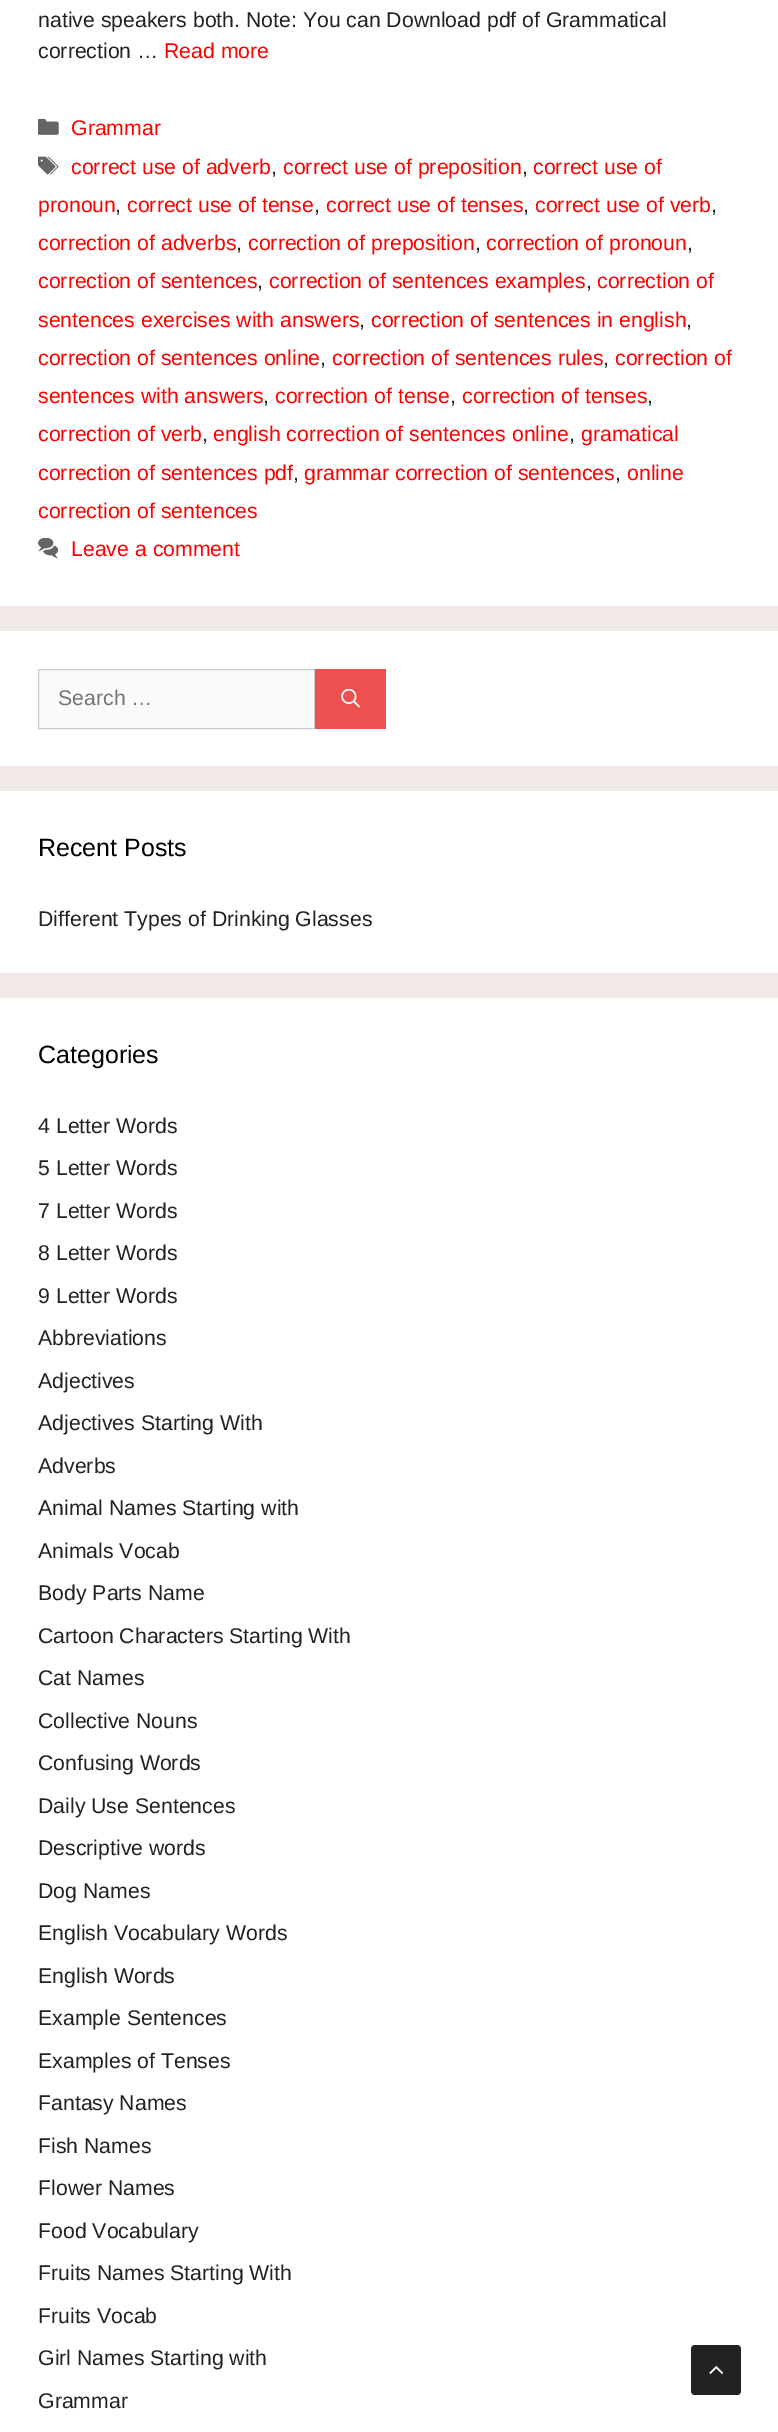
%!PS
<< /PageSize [778 2432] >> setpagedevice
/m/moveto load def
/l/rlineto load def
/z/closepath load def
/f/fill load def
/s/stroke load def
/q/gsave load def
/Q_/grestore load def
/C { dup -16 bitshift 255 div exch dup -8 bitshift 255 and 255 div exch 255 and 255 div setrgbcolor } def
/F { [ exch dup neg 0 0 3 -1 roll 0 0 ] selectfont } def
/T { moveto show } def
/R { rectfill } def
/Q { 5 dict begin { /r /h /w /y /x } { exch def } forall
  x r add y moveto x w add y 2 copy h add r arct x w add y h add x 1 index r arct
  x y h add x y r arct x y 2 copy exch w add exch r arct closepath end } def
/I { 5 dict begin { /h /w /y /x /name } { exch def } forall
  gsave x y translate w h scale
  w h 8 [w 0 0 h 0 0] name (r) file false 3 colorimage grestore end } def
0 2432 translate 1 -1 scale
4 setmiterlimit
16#F1E8E8 C
0 0 778 2432 R
16#FFFFFF C
0 0 778 606 R
/LiberationSans-Regular 21.25 F
16#222222 C
(native speakers both. Note: You can Download pdf of Grammatical) 38 27 T
(correction …) 38 58 T
16#FF0000 C
(Read more) 164 58 T
(1.rgb) 38 118 21 17 I
(Grammar) 71 135 T
(2.rgb) 38 156 21 19 I
(correct use of adverb) 71 174 T
16#222222 C
(,) 271 174 T
16#FF0000 C
(correct use of preposition) 283 174 T
16#222222 C
(,) 522 174 T
16#FF0000 C
(correct use of) 533 174 T
(pronoun) 38 212 T
16#222222 C
(,) 115 212 T
16#FF0000 C
(correct use of tense) 127 212 T
16#222222 C
(,) 314 212 T
16#FF0000 C
(correct use of tenses) 326 212 T
16#222222 C
(,) 523 212 T
16#FF0000 C
(correct use of verb) 535 212 T
16#222222 C
(,) 711 212 T
16#FF0000 C
(correction of adverbs) 38 250 T
16#222222 C
(,) 236 250 T
16#FF0000 C
(correction of preposition) 248 250 T
16#222222 C
(,) 475 250 T
16#FF0000 C
(correction of pronoun) 486 250 T
16#222222 C
(,) 687 250 T
16#FF0000 C
(correction of sentences) 38 288 T
16#222222 C
(,) 257 288 T
16#FF0000 C
(correction of sentences examples) 269 288 T
16#222222 C
(,) 586 288 T
16#FF0000 C
(correction of) 597 288 T
(sentences exercises with answers) 38 327 T
16#222222 C
(,) 359 327 T
16#FF0000 C
(correction of sentences in english) 371 327 T
16#222222 C
(,) 686 327 T
16#FF0000 C
(correction of sentences online) 38 365 T
16#222222 C
(,) 320 365 T
16#FF0000 C
(correction of sentences rules) 332 365 T
16#222222 C
(,) 603 365 T
16#FF0000 C
(correction of) 615 365 T
(sentences with answers) 38 403 T
16#222222 C
(,) 263 403 T
16#FF0000 C
(correction of tense) 275 403 T
16#222222 C
(,) 450 403 T
16#FF0000 C
(correction of tenses) 462 403 T
16#222222 C
(,) 647 403 T
16#FF0000 C
(correction of verb) 38 441 T
16#222222 C
(,) 202 441 T
16#FF0000 C
(english correction of sentences online) 213 441 T
16#222222 C
(,) 569 441 T
16#FF0000 C
(gramatical) 581 441 T
(correction of sentences pdf) 38 480 T
16#222222 C
(,) 293 480 T
16#FF0000 C
(grammar correction of sentences) 304 480 T
16#222222 C
(,) 615 480 T
16#FF0000 C
(online) 627 480 T
(correction of sentences) 38 518 T
(3.rgb) 38 538 21 21 I
(Leave a comment) 71 556 T
16#FFFFFF C
0 631 778 135 R
16#FAFAFA C
38.5 669.5 m 276 0 l 0 59 l -276 0 l z q f Q_
16#CCCCCC C
s
16#757575 C
(Search …) 58 705 T
16#EE5050 C
315 669 71 60 R
(4.rgb) 341 689 19 19 I
16#FFFFFF C
0 791 778 182 R
/LiberationSans-Regular 25 F
16#000000 C
(Recent Posts) 38 856 T
/LiberationSans-Regular 21.25 F
16#222222 C
(Different Types of Drinking Glasses) 38 926 T
16#FFFFFF C
0 998 778 1434 R
/LiberationSans-Regular 25 F
16#000000 C
(Categories) 38 1063 T
/LiberationSans-Regular 21.25 F
16#222222 C
(4 Letter Words) 38 1133 T
(5 Letter Words) 38 1175 T
(7 Letter Words) 38 1218 T
(8 Letter Words) 38 1260 T
(9 Letter Words) 38 1303 T
(Abbreviations) 38 1345 T
(Adjectives) 38 1388 T
(Adjectives Starting With) 38 1430 T
(Adverbs) 38 1473 T
(Animal Names Starting with) 38 1515 T
(Animals Vocab) 38 1558 T
(Body Parts Name) 38 1600 T
(Cartoon Characters Starting With) 38 1643 T
(Cat Names) 38 1685 T
(Collective Nouns) 38 1728 T
(Confusing Words) 38 1770 T
(Daily Use Sentences) 38 1813 T
(Descriptive words) 38 1855 T
(Dog Names) 38 1898 T
(English Vocabulary Words) 38 1940 T
(English Words) 38 1983 T
(Example Sentences) 38 2025 T
(Examples of Tenses) 38 2068 T
(Fantasy Names) 38 2110 T
(Fish Names) 38 2153 T
(Flower Names) 38 2195 T
(Food Vocabulary) 38 2238 T
(Fruits Names Starting With) 38 2280 T
(Fruits Vocab) 38 2323 T
(Girl Names Starting with) 38 2365 T
(Grammar) 38 2408 T
691 2345 50 50 4 Q f
(5.rgb) 709 2366 15 8 I
showpage
